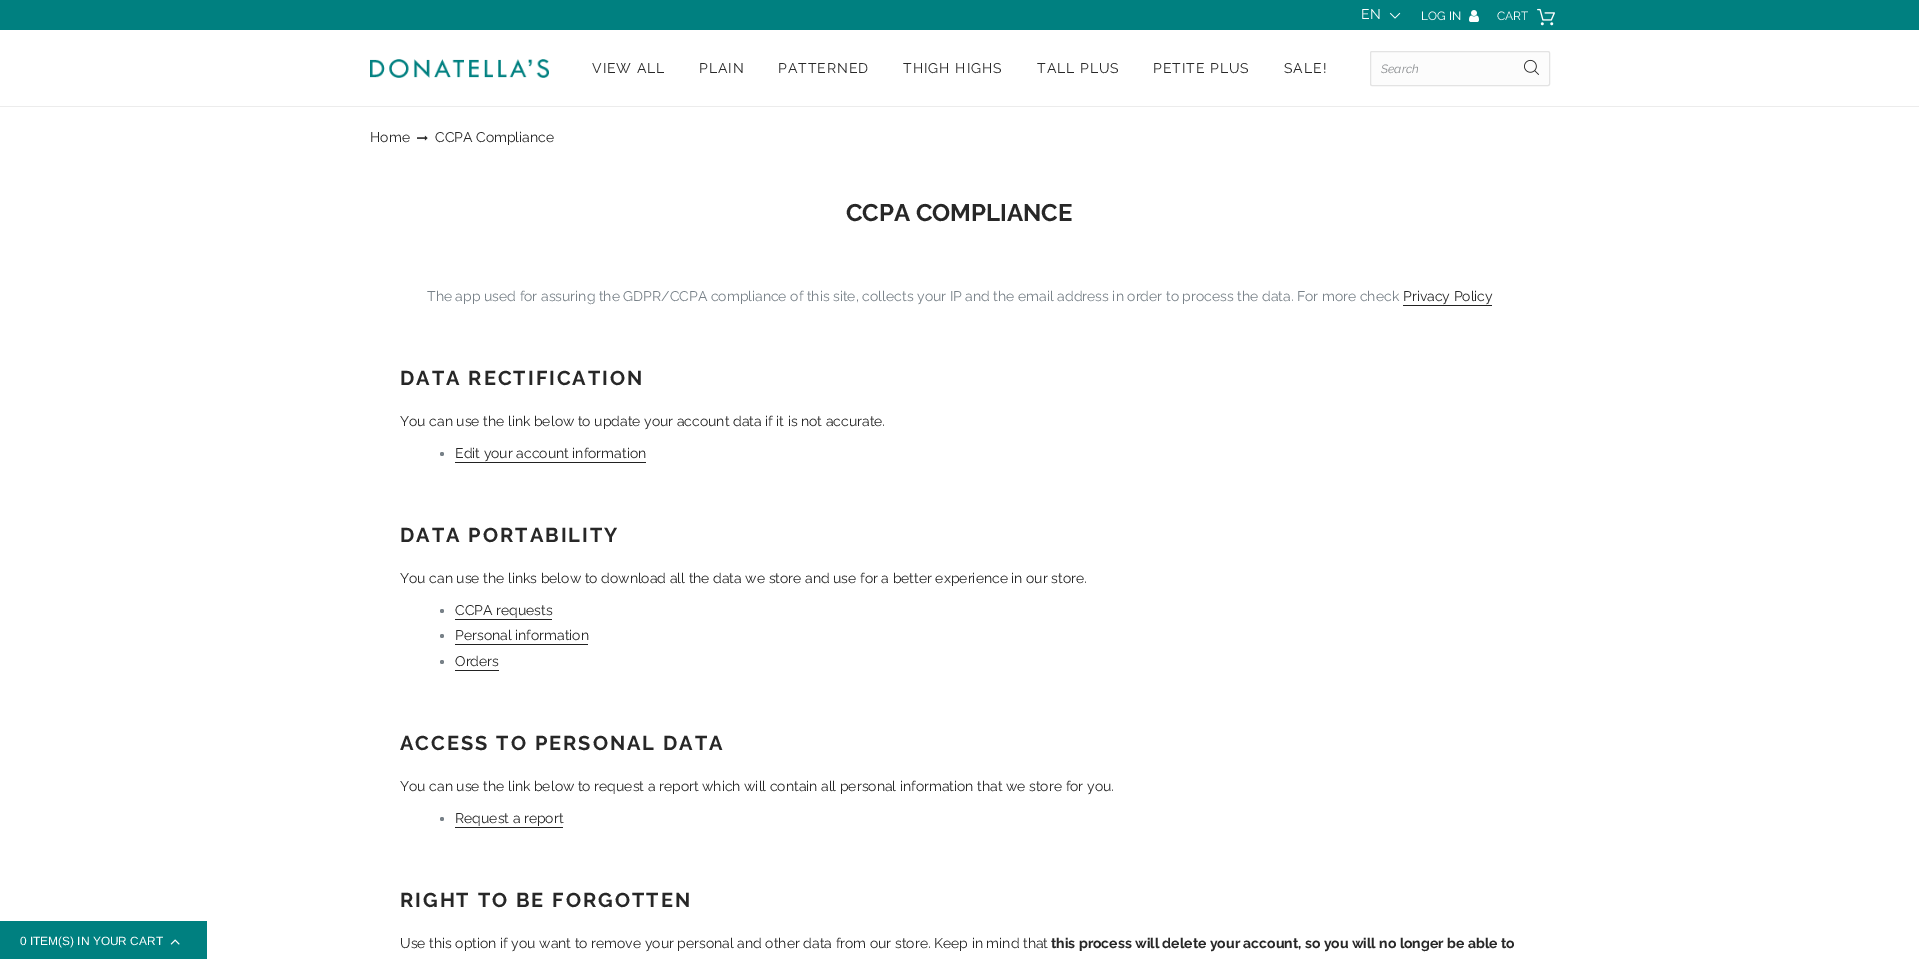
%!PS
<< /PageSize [1919 959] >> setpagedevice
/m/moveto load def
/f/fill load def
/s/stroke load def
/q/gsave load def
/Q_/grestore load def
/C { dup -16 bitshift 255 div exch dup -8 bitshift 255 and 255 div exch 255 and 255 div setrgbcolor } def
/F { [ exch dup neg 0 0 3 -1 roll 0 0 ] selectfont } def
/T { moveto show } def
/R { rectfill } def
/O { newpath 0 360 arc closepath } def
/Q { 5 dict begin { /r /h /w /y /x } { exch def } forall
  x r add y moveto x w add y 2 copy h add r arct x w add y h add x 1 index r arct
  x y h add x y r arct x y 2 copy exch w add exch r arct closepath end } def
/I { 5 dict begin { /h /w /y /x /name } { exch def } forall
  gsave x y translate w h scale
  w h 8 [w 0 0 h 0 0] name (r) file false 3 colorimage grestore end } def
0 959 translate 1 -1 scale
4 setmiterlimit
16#FFFFFF C
0 0 1919 959 R
16#008080 C
0 0 1919 30 R
(1.rgb) 1389 12 12 7 I
/Raleway-Regular 14 F
16#FFFFFF C
(EN) 1361 19 T
/Raleway-Regular 12 F
(LOG IN) 1421 20 T
(2.rgb) 1469 10 10 12 I
(CART) 1497 20 T
(3.rgb) 1537 8 18 18 I
(4.rgb) 370 59 179 19 I
/Raleway-Regular 14 F
16#272727 C
592 73 m 1 0 (VIEW ALL) ashow
699 73 m 1 0 (PLAIN) ashow
778 73 m 1 0 (PATTERNED) ashow
903 73 m 1 0 (THIGH HIGHS) ashow
1037 73 m 1 0 (TALL PLUS) ashow
1153 73 m 1 0 (PETITE PLUS) ashow
1284 73 m 1 0 (SALE!) ashow
16#FCFCFC C
1370.5 51.5 179 34 1.5 Q q f Q_
16#E3E3E3 C
s
/Raleway-Italic 12 F
16#898C8F C
(Search) 1381 73 T
(5.rgb) 1524 59 15 16 I
16#008080 C
0 921 207 38 R
/LiberationSans-Regular 11.9 F
16#FFFFFF C
(0 ITEM\(S\) IN YOUR CART) 20 945 T
(6.rgb) 170 939 10 6 I
16#ECECEC C
0 106 1919 1 R
/Raleway-Regular 14 F
16#272727 C
(Home) 370 142 T
(7.rgb) 417 135 11 6 I
(CCPA Compliance) 435 142 T
/Raleway-Bold 24 F
(CCPA COMPLIANCE) 846 221 T
/Raleway-Regular 14 F
16#788188 C
(The app used for assuring the GDPR/CCPA compliance of this site, collects your IP and the email address in order to process the data. For more check) 427 301 T
16#272727 C
(Privacy Policy) 1403 301 T
16#222222 C
1403 305 89 1 R
/Raleway-Bold 20 F
16#272727 C
400 385 m 2 0 (DATA RECTIFICATION) ashow
/Raleway-Regular 14 F
(You can use the link below to update your account data if it is not accurate.) 400 426 T
16#788188 C
442 454 2 O f
16#272727 C
(Edit your account information) 455 458 T
16#222222 C
455 462 191 1 R
/Raleway-Bold 20 F
16#272727 C
400 542 m 2 0 (DATA PORTABILITY) ashow
/Raleway-Regular 14 F
(You can use the links below to download all the data we store and use for a better experience in our store.) 400 583 T
16#788188 C
442 611 2 O f
16#272727 C
(CCPA requests) 455 615 T
16#222222 C
455 619 97 1 R
16#788188 C
442 636 2 O f
16#272727 C
(Personal information) 455 640 T
16#222222 C
455 644 133 1 R
16#788188 C
442 662 2 O f
16#272727 C
(Orders) 455 666 T
16#222222 C
455 670 44 1 R
/Raleway-Bold 20 F
16#272727 C
400 750 m 2 0 (ACCESS TO PERSONAL DATA) ashow
/Raleway-Regular 14 F
(You can use the link below to request a report which will contain all personal information that we store for you.) 400 791 T
16#788188 C
442 819 2 O f
16#272727 C
(Request a report) 455 823 T
16#222222 C
455 827 108 1 R
/Raleway-Bold 20 F
16#272727 C
400 907 m 2 0 (RIGHT TO BE FORGOTTEN) ashow
/Raleway-Regular 14 F
(Use this option if you want to remove your personal and other data from our store. Keep in mind that) 400 948 T
/Raleway-Bold 14 F
(this process will delete your account, so you will no longer be able to) 1051 948 T
showpage
